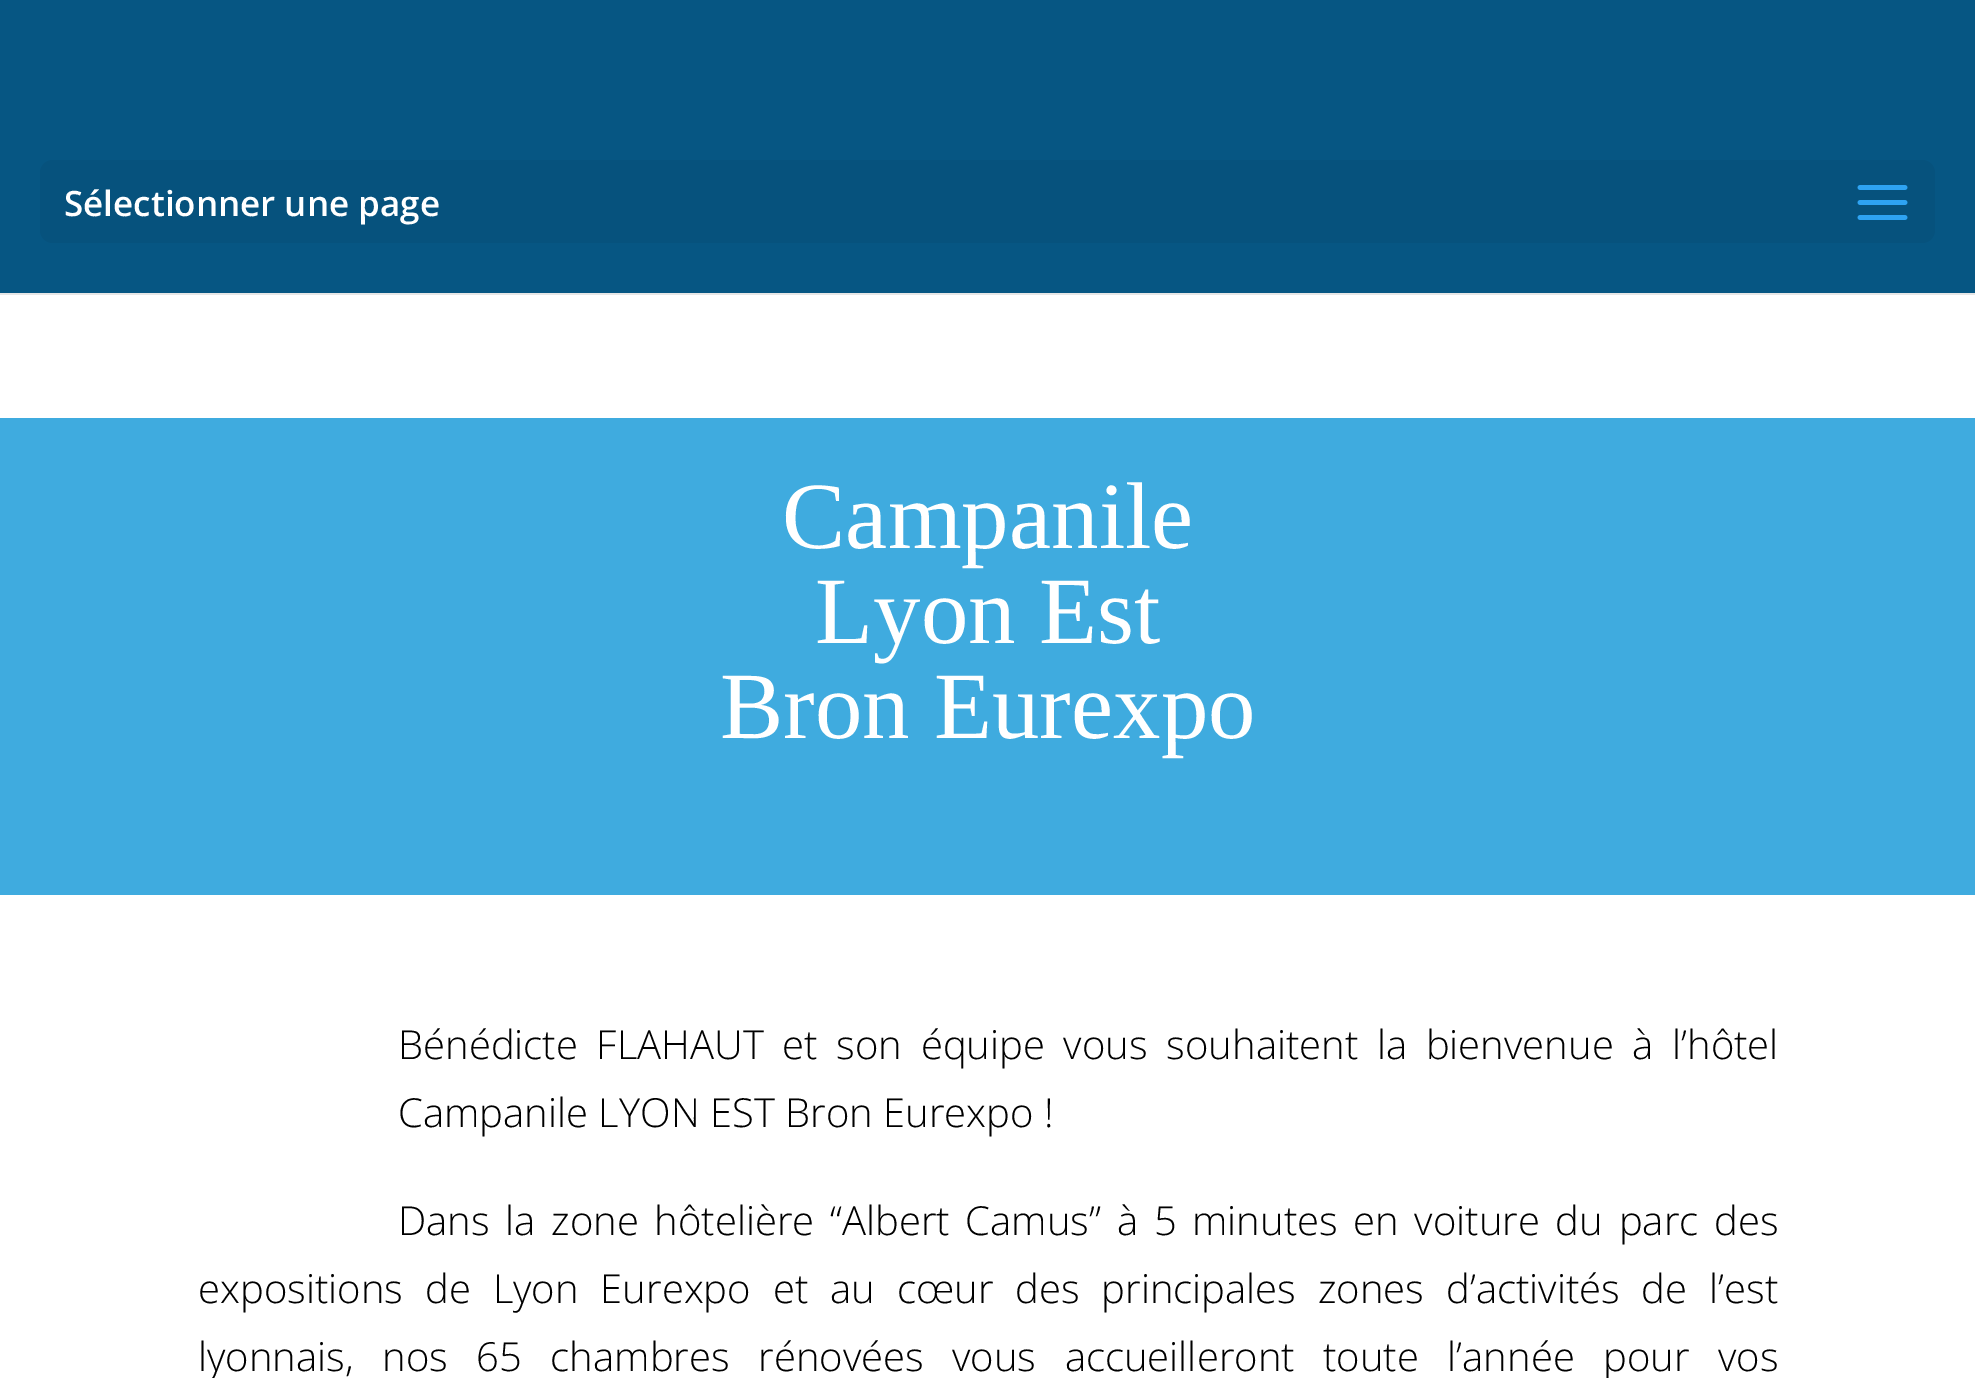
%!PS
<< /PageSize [1975 1378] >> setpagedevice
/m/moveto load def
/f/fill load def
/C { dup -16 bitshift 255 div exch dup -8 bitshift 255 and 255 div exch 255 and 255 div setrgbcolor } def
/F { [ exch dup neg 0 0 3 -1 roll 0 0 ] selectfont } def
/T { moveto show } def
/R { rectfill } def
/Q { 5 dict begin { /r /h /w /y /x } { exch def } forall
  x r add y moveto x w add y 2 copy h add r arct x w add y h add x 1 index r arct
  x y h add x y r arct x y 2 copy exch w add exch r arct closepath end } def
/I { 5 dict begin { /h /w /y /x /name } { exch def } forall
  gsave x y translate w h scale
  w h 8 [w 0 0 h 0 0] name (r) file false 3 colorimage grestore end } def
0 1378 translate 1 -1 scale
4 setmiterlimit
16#FFFFFF C
0 0 1975 1378 R
16#E6E6E6 C
0 293 1975 2 R
16#065683 C
0 0 1975 293 R
16#06527D C
40 160 1895 83 13 Q f
/OpenSans-SemiBold 35 F
16#FFFFFF C
(Sélectionner une page) 64 216 T
(1.rgb) 1857 185 51 35 I
16#3FABDF C
0 418 1975 477 R
/LiberationSerif-Regular 95 F
16#FFFFFF C
(Campanile) 782 548 T
(Lyon Est) 815 643 T
(Bron Eurexpo) 720 738 T
/OpenSans-Light 40 F
16#000000 C
398 1059 m 8.25 0 32 (Bénédicte FLAHAUT et son équipe vous souhaitent la bienvenue à l’hôtel) widthshow
(Campanile LYON EST Bron Eurexpo !) 398 1127 T
398 1235 m 5.25 0 32 (Dans la zone hôtelière “Albert Camus” à 5 minutes en voiture du parc des) widthshow
198 1303 m 11.5 0 32 (expositions de Lyon Eurexpo et au cœur des principales zones d’activités de l’est) widthshow
198 1371 m 18.1 0 32 (lyonnais, nos 65 chambres rénovées vous accueilleront toute l’année pour vos) widthshow
showpage
